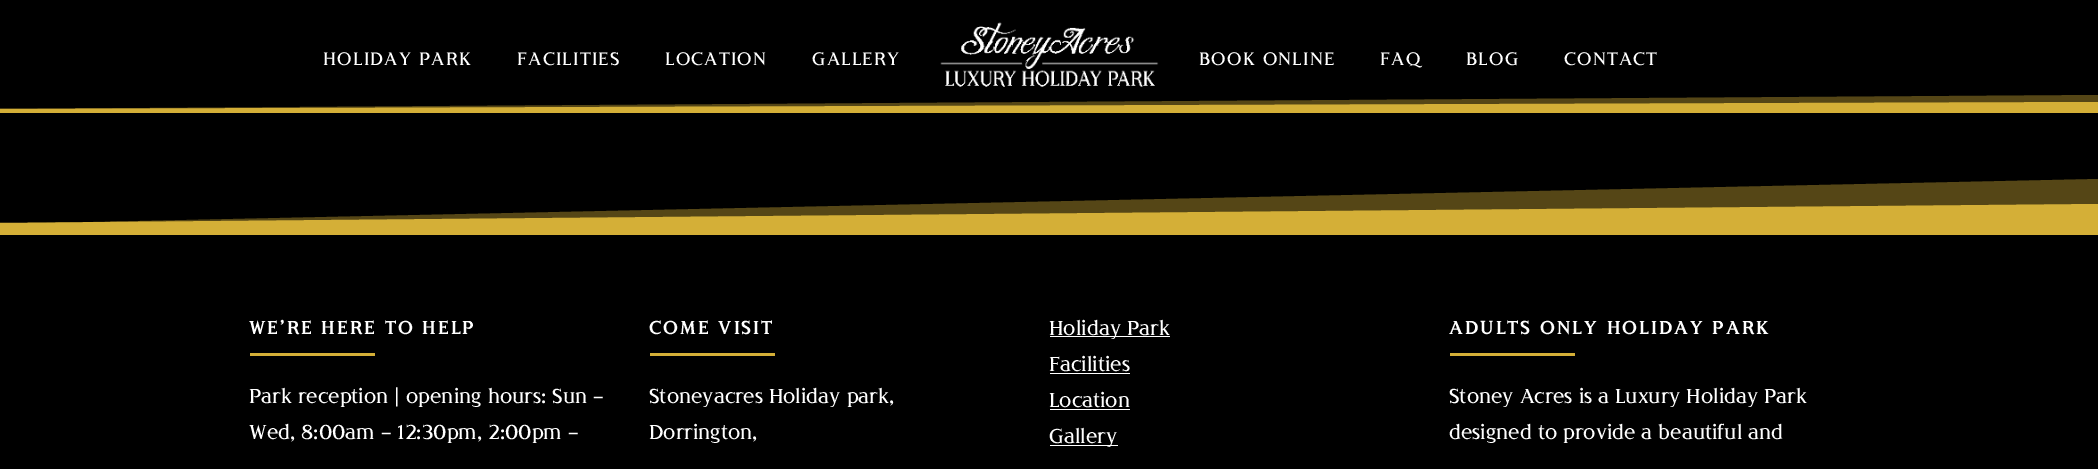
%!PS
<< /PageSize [2098 469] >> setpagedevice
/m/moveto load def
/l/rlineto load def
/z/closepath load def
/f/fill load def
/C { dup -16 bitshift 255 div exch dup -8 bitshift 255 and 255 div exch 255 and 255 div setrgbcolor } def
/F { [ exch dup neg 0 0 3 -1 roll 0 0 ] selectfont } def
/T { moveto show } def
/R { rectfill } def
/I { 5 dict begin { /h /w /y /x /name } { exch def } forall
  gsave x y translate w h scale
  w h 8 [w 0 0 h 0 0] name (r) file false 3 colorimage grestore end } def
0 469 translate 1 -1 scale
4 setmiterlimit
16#000000 C
0 0 2098 469 R
/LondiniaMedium-Medium 18 F
16#FFFFFF C
323 65 m 1.25 0 (HOLIDAY PARK) ashow
517 65 m 1.25 0 (FACILITIES) ashow
665 65 m 1.25 0 (LOCATION) ashow
812 65 m 1.25 0 (GALLERY) ashow
(1.rgb) 940 22 219 65 I
1199 65 m 1.25 0 (BOOK ONLINE) ashow
1380 65 m 1.25 0 (FAQ) ashow
1466 65 m 1.25 0 (BLOG) ashow
1564 65 m 1.25 0 (CONTACT) ashow
16#554616 C
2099 95 m -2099 14 l 0 3 l 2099 0 l z f
16#D4AF37 C
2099 102 m -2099 7 l 0 4 l 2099 0 l z f
16#554616 C
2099 179 m -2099 45 l 0 11 l 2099 0 l z f
16#D4AF37 C
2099 204 m -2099 19 l 0 12 l 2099 0 l z f
/LondiniaMedium-Bold 18 F
16#FFFFFF C
249 334 m 2.5 0 (WE’RE HERE TO HELP) ashow
16#D4AF37 C
250 353 125 3 R
/LondiniaMedium-Medium 20 F
16#FFFFFF C
(Park reception | opening hours: Sun –) 249 403 T
(Wed, 8:00am – 12:30pm, 2:00pm –) 249 439 T
/LondiniaMedium-Bold 18 F
649 334 m 2.5 0 (COME VISIT) ashow
16#D4AF37 C
650 353 125 3 R
/LondiniaMedium-Medium 20 F
16#FFFFFF C
(Stoneyacres Holiday park,) 649 403 T
(Dorrington,) 649 439 T
1050 336 120 1 R
(Holiday Park) 1049 335 T
(Facilities) 1049 371 T
1050 373 80 1 R
(Location) 1049 407 T
1050 409 80 1 R
1050 445 68 1 R
(Gallery) 1049 443 T
/LondiniaMedium-Bold 18 F
1449 334 m 2.5 0 (ADULTS ONLY HOLIDAY PARK) ashow
16#D4AF37 C
1450 353 125 3 R
/LondiniaMedium-Medium 20 F
16#FFFFFF C
(Stoney Acres is a Luxury Holiday Park) 1449 403 T
(designed to provide a beautiful and) 1449 439 T
showpage
